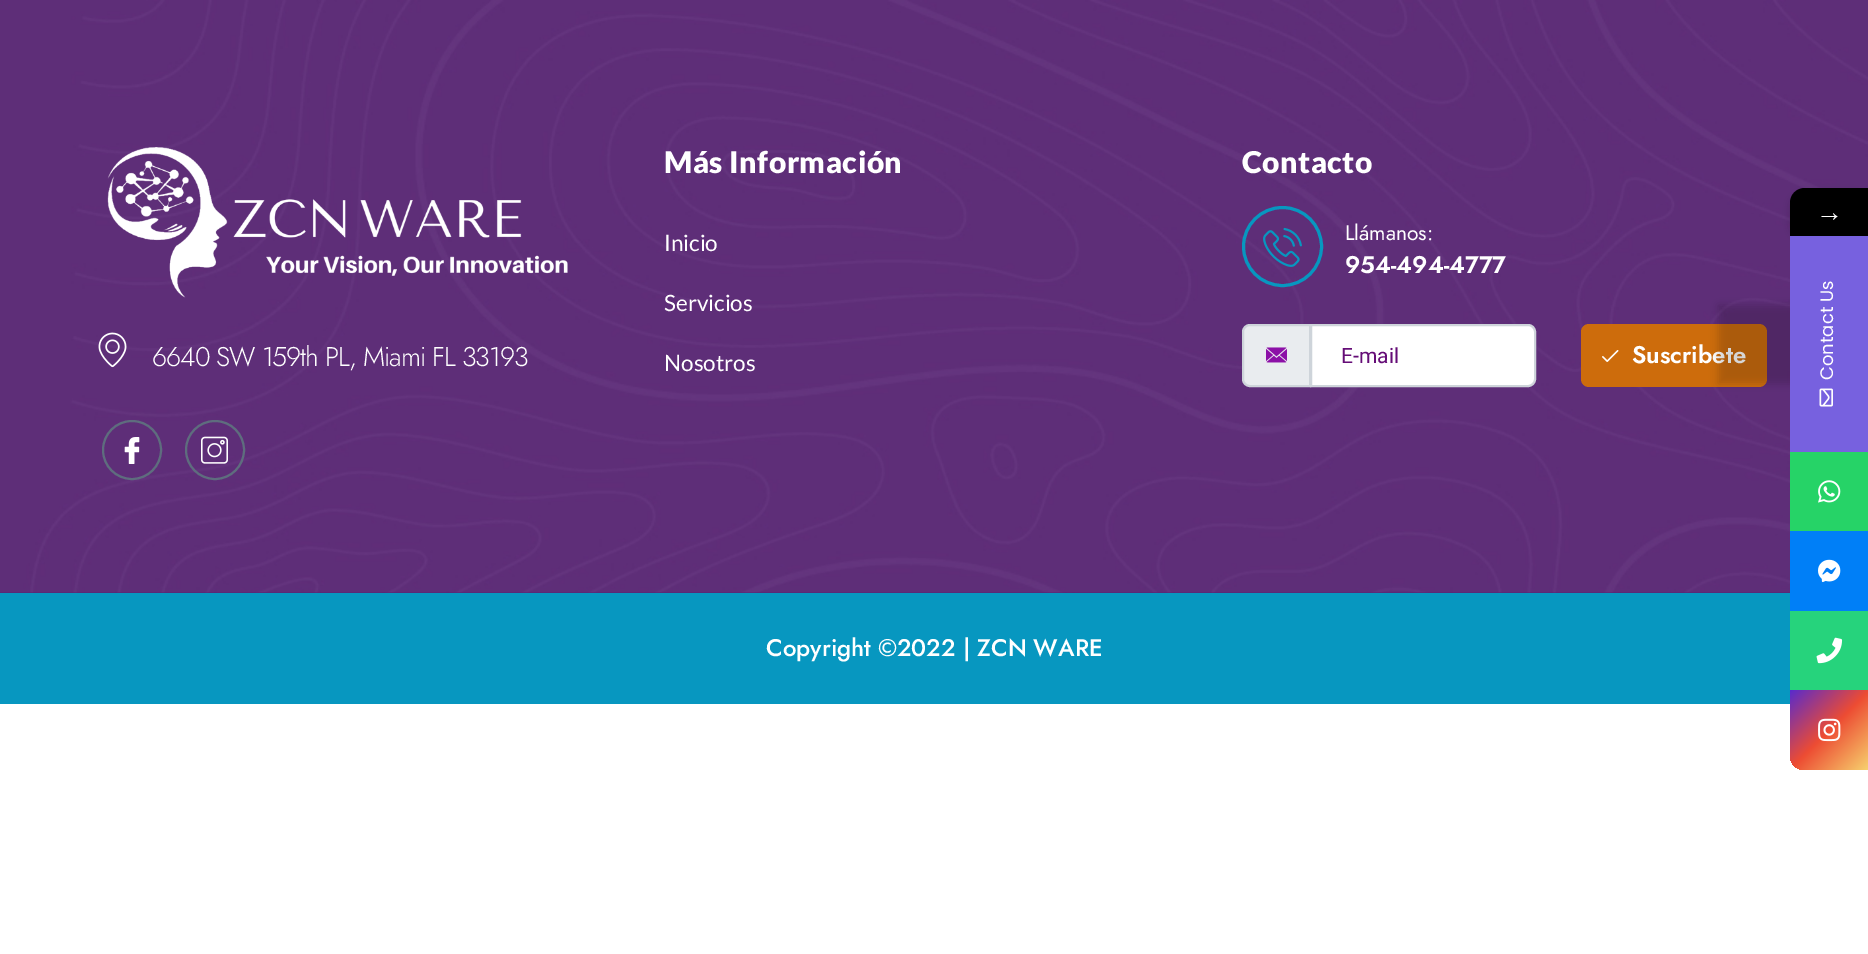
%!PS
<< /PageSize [1868 954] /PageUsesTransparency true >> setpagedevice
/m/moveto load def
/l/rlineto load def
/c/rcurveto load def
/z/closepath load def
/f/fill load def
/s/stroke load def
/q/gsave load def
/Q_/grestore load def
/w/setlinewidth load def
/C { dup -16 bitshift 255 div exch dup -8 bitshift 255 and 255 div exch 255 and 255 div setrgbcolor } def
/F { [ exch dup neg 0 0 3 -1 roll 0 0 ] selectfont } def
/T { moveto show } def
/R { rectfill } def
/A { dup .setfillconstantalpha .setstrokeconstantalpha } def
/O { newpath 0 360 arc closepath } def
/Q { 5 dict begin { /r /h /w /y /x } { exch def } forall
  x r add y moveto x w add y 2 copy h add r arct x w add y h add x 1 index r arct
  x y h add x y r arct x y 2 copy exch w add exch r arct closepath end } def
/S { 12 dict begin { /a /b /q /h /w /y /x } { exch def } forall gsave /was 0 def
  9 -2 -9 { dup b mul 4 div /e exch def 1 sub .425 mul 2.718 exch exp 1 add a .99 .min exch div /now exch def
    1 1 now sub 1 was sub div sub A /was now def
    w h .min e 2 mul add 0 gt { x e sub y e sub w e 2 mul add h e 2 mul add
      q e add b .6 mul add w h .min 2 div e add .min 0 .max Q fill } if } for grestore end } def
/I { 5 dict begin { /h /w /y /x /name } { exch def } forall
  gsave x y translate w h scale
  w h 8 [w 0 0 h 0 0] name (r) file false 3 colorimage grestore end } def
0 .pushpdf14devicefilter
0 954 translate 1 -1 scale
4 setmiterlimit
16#FFFFFF C
0 0 1868 954 R
16#542375 C
0 592 1790 1 R
(1.rgb) 0 0 1868 593 I
(2.rgb) 107 147 461 151 I
(3.rgb) 98 332 29 36 I
/Jost-Light 27 F
16#FFFFFF C
152 366 m -1.05 0 (6640 SW 159th PL, Miami FL 33193) ashow
16#5E6D7E C
2 w
132 450 29 O s
(4.rgb) 124 437 16 27 I
215 450 29 O s
(5.rgb) 201 436 27 28 I
/Lato-Black 30 F
16#FFFFFF C
664 173 m .5 0 (Más Información) ashow
/Lato-Regular 22.5 F
(Inicio) 664 251 T
(Servicios) 664 311 T
(Nosotros) 664 371 T
/Lato-Black 30 F
1242 173 m .5 0 (Contacto) ashow
16#0797C0 C
3 w
1282.5 246.5 39 O s
(6.rgb) 1263 227 39 40 I
/Jost-Regular 21 F
16#FFFFFF C
(Llámanos:) 1345 240 T
/Jost-SemiBold 24 F
(954-494-4777) 1345 273 T
16#E9ECEF C
1250 325 m 60 0 l 0 61 l -60 0 l -4 0 -7 -3 -7 -7 c 0 -47 l 0 -4 3 -7 7 -7 c z q f Q_
16#CED4DA C
2 w
s
(7.rgb) 1266 347 21 16 I
16#FFFFFF C
1311 325 m 217 0 l 4 0 7 3 7 7 c 0 47 l 0 4 -3 7 -7 7 c -217 0 l z q f Q_
16#CED4DA C
s
/Roboto-Regular 21 F
16#650D77 C
(E-mail) 1341 363 T
16#CD6C0C C
1581 324 186 63 8 Q f
(8.rgb) 1602 350 17 12 I
/Jost-SemiBold 24 F
16#FFFFFF C
(Suscribete) 1632 363 T
16#0797C0 C
0 593 1790 111 R
/Jost-Medium 24 F
16#FFFFFF C
(Copyright ©2022 | ZCN WARE) 766 656 T
16#000000 C
1790 192 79 48 15 4.5 .16 S
1805 188 m 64 0 l 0 48 l -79 0 l 0 -33 l 0 -8.5 6.5 -15 15 -15 c z f
/LiberationSerif-Regular 27 F
16#FFFFFF C
(→) 1816 221 T
16#000000 C
1718 305 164 79 0 4.5 .16 S
16#7761DF C
1790 236 78 216 R
/Poppins-Regular 18 F
16#FFFFFF C
q 1833 380 translate -90 rotate 0 0 m (Contact Us) show Q_
(9.rgb) 1819 388 14 19 I
16#26D367 C
1790 452 78 79 R
(10.rgb) 1818 480 23 23 I
16#007FF7 C
1790 531 78 80 R
(11.rgb) 1818 559 23 24 I
16#26D37C C
1790 611 78 79 R
(12.rgb) 1816 637 27 27 I
q 1790 690 m 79 0 l 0 80 l -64 0 l -8.5 0 -15 -6.5 -15 -15 c z clip newpath
<< /ShadingType 2 /ColorSpace /DeviceRGB /Coords [1790 690 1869 770] /Extend [true true] /Function << /FunctionType 3 /Domain [0 1] /Functions [<< /FunctionType 2 /Domain [0 1] /C0 [.345 .169 .804] /C1 [.929 .298 .2] /N 1 >> << /FunctionType 2 /Domain [0 1] /C0 [.929 .298 .2] /C1 [.969 .827 .435] /N 1 >>] /Bounds [.5] /Encode [0 1 0 1] >> >> shfill Q_
(13.rgb) 1818 718 23 24 I
.poppdf14devicefilter showpage
